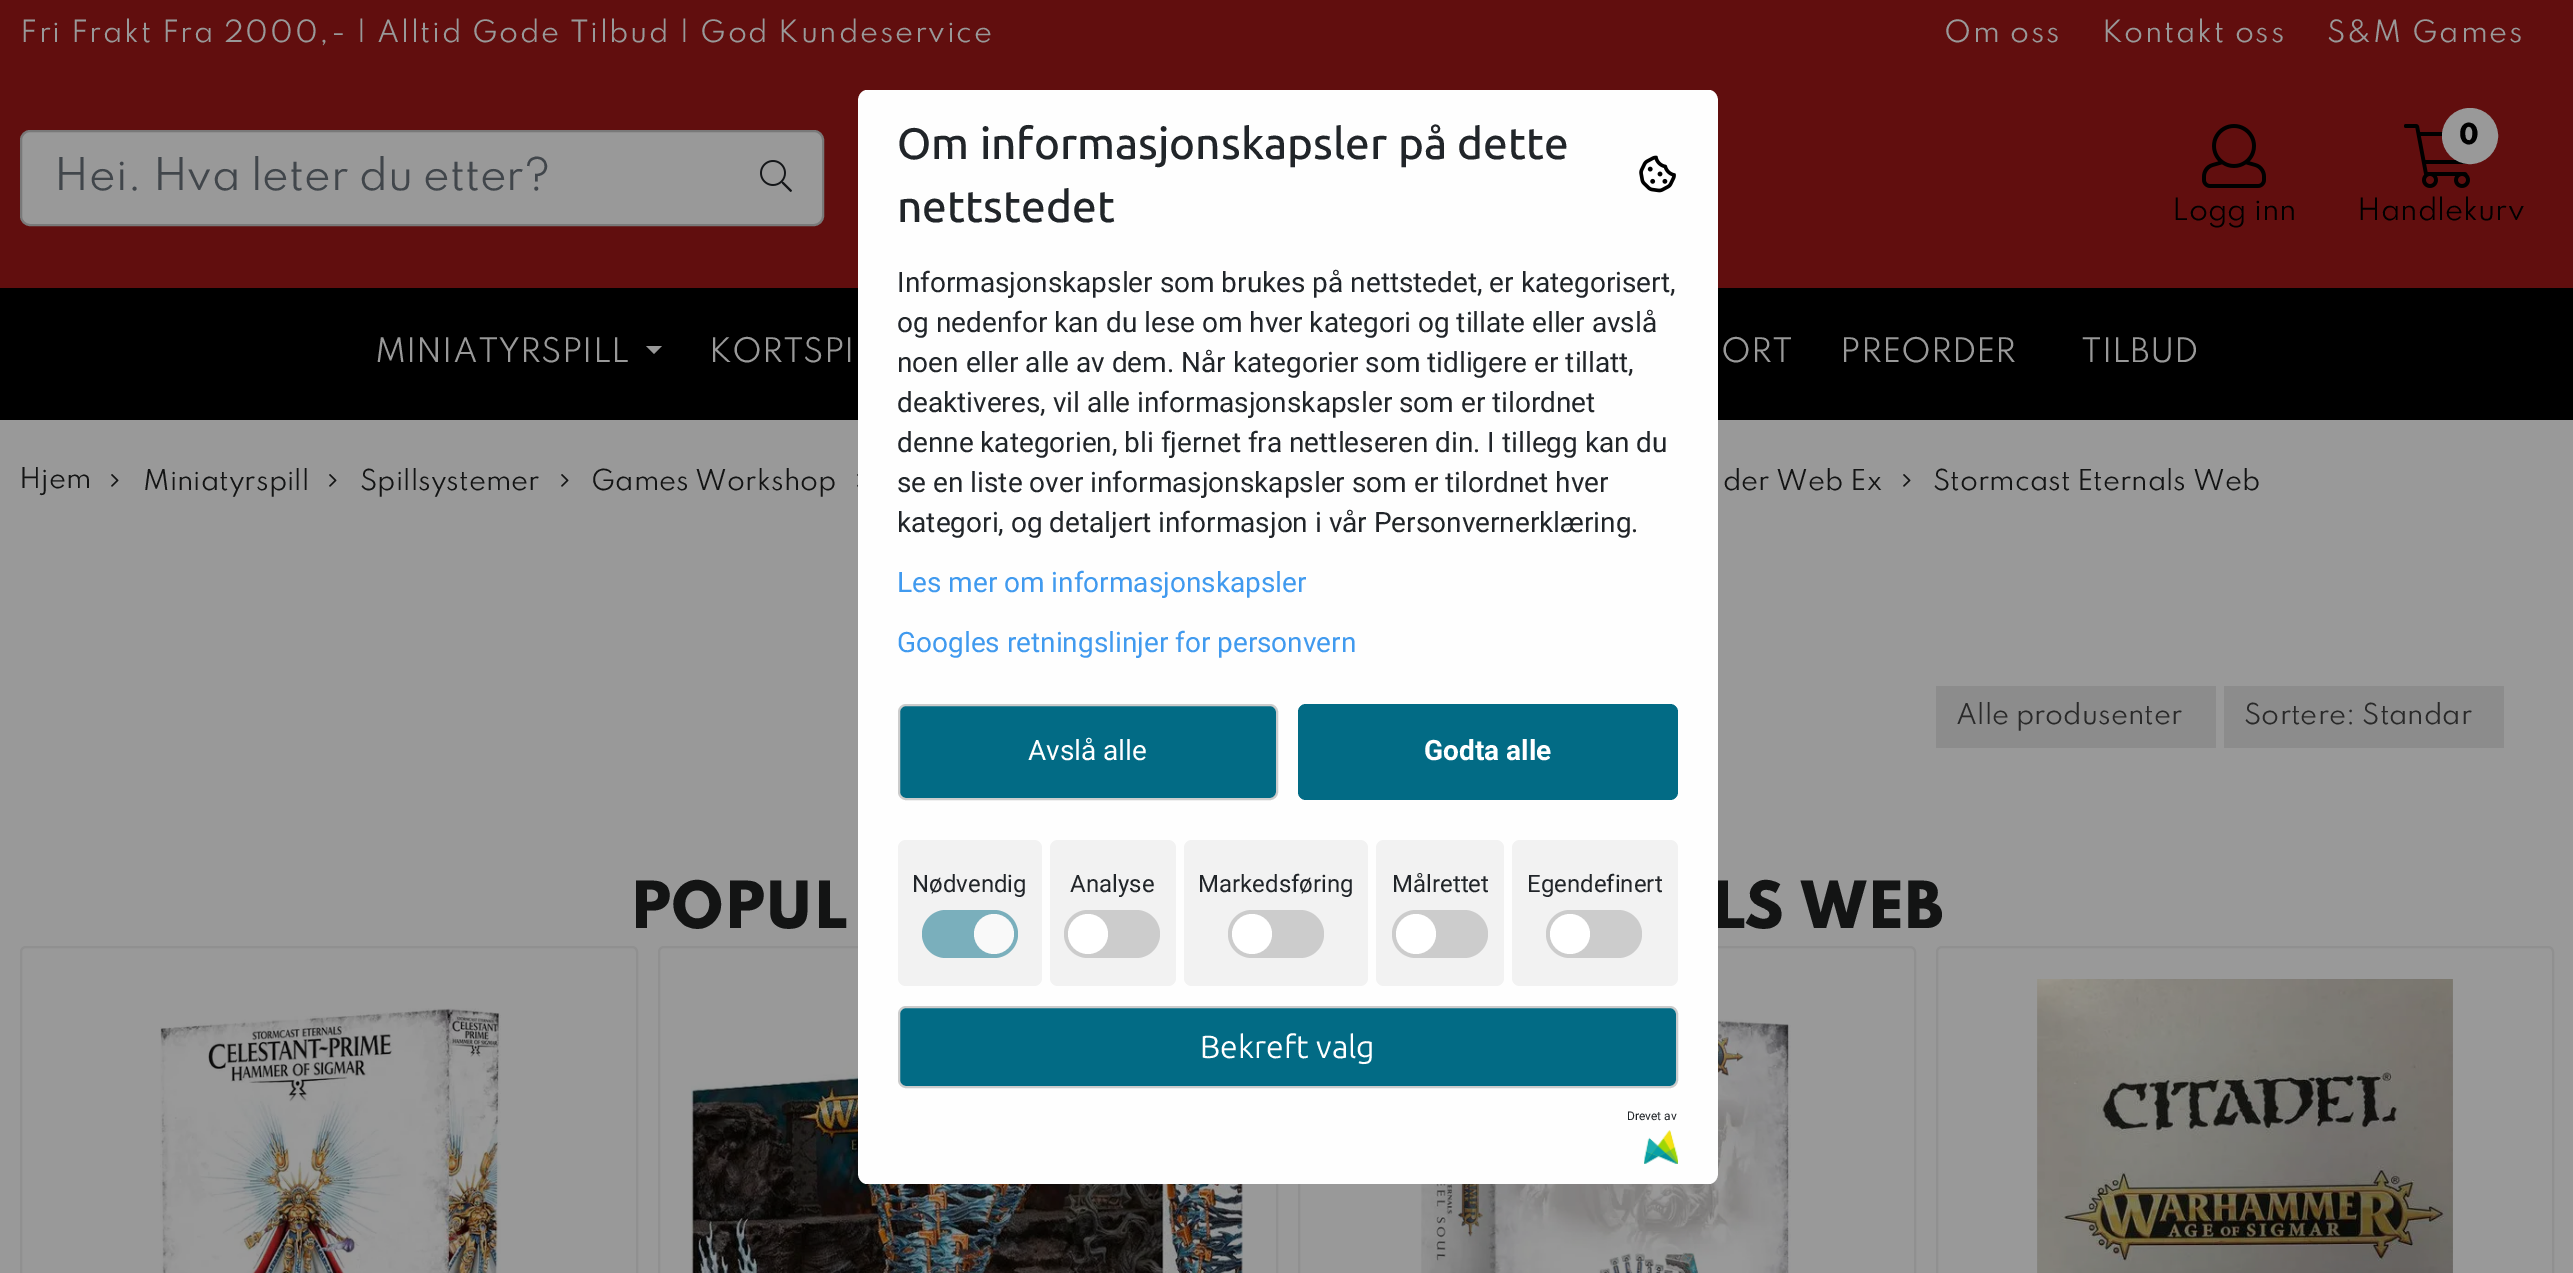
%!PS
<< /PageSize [2573 1273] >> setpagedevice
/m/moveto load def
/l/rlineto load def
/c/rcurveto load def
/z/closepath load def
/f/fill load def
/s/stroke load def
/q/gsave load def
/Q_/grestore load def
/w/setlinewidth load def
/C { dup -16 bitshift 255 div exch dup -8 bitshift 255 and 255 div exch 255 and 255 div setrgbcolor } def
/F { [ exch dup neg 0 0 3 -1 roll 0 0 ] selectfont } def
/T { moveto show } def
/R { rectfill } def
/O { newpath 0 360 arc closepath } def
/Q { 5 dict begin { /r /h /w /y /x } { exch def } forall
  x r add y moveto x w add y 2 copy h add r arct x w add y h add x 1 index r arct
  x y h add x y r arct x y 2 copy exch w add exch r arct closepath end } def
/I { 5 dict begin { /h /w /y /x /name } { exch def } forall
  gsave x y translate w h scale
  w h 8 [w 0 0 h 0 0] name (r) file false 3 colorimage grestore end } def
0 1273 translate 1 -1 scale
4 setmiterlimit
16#999999 C
0 0 2573 1273 R
16#610E0E C
0 0 2573 288 R
/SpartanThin-Regular 27.2 F
16#999999 C
20 42 m 1.7 0 (Fri Frakt Fra 2000,- | Alltid Gode Tilbud | God Kundeservice) ashow
1944 42 m 1.7 0 (Om oss) ashow
2102 42 m 1.7 0 (Kontakt oss) ashow
2327 42 m 1.7 0 (S&M Games) ashow
21 131 802 94 9 Q q f Q_
16#797979 C
2 w
s
q
54 156 736 46 rectclip
/SpartanThin-Regular 40 F
16#41464B C
(Hei. Hva leter du etter?) 54 190 T
Q_
(1.rgb) 760 160 32 32 I
(2.rgb) 2202 124 64 64 I
16#000000 C
(Logg inn) 2172 220 T
(3.rgb) 2404 124 66 64 I
16#999999 C
2470 136 26 O q f Q_
4 w
s
/SpartanThin-ExtraBold 25.6 F
16#000000 C
(0) 2459 144 T
/SpartanThin-Regular 27.2 F
(Handlekurv) 2357 220 T
0 288 2573 132 R
/SpartanThin-Regular 30 F
16#999999 C
(MINIATYRSPILL) 375 362 T
646 346 m 16 0 l -8 8 l z f
(KORTSPI) 709 362 T
(ORT) 1721 362 T
(PREORDER) 1840 362 T
(TILBUD) 2081 362 T
/SpartanThin-ExtraBold 57.5 F
16#131414 C
(LS WEB) 1711 928 T
16#909090 C
2 w
659 947 618 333 5 Q s
(9.rgb) 691 1053 552 220 I
1299 947 616 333 5 Q s
(10.rgb) 1421 1008 370 265 I
16#FEFEFE C
867 90 m 842 0 l 5 0 9 5 9 11 c 0 1072 l 0 6 -4 11 -9 11 c -842 0 l -5 0 -9 -5 -9 -11 c 0 -1072 l 0 -6 4 -11 9 -11 c z f
/Ubuntu-Medium 44 F
16#212529 C
(Om informasjonskapsler på dette) 897 159 T
(nettstedet) 897 222 T
(4.rgb) 1639 155 37 38 I
/Roboto-Regular 28 F
(Informasjonskapsler som brukes på nettstedet, er kategorisert,) 897 292 T
(og nedenfor kan du lese om hver kategori og tillate eller avslå) 897 332 T
(noen eller alle av dem. Når kategorier som tidligere er tillatt,) 897 372 T
(deaktiveres, vil alle informasjonskapsler som er tilordnet) 897 412 T
(denne kategorien, bli fjernet fra nettleseren din. I tillegg kan du) 897 452 T
(se en liste over informasjonskapsler som er tilordnet hver) 897 492 T
(kategori, og detaljert informasjon i vår Personvernerklæring.) 897 532 T
16#409AEF C
(Les mer om informasjonskapsler) 897 592 T
(Googles retningslinjer for personvern) 897 652 T
16#026B85 C
899 705 378 94 7 Q q f Q_
16#CCCCCC C
s
16#FFFFFF C
(Avslå alle) 1028 760 T
16#026B85 C
1298 704 380 96 8 Q f
/Roboto-Bold 28 F
16#FFFFFF C
(Godta alle) 1424 760 T
16#F2F2F2 C
898 840 144 146 8 Q f
/Roboto-Regular 24 F
16#212529 C
(Nødvendig) 912 892 T
16#7AAFBC C
922 910 96 48 24 Q f
16#F9F9F9 C
994 934 20 O f
16#F2F2F2 C
1050 840 126 146 8 Q f
16#212529 C
(Analyse) 1070 892 T
16#CCCCCC C
1064 910 96 48 24 Q f
16#FFFFFF C
1088 934 20 O f
16#F2F2F2 C
1184 840 184 146 8 Q f
16#212529 C
(Markedsføring) 1198 892 T
16#CCCCCC C
1228 910 96 48 24 Q f
16#FFFFFF C
1252 934 20 O f
16#F2F2F2 C
1376 840 128 146 8 Q f
16#212529 C
(Målrettet) 1392 892 T
16#CCCCCC C
1392 910 96 48 24 Q f
16#FFFFFF C
1416 934 20 O f
16#F2F2F2 C
1512 840 166 146 8 Q f
16#212529 C
(Egendefinert) 1527 892 T
16#CCCCCC C
1546 910 96 48 24 Q f
16#FFFFFF C
1570 934 20 O f
16#026B85 C
899 1007 778 80 7 Q q f Q_
16#CCCCCC C
s
/Ubuntu-Regular 32 F
16#FFFFFF C
(Bekreft valg) 1200 1058 T
/Roboto-Regular 12 F
16#212529 C
(Drevet av) 1627 1120 T
(5.rgb) 1644 1130 34 34 I
/SpartanThin-Regular 25.6 F
16#131414 C
(Hjem) 19 488 T
(6.rgb) 111 474 8 13 I
(Miniatyrspill) 143 490 T
(6.rgb) 329 474 8 13 I
(Spillsystemer) 360 490 T
(6.rgb) 561 474 8 13 I
(Games Workshop) 591 490 T
(7.rgb) 857 474 1 13 I
(der Web Ex) 1723 490 T
(6.rgb) 1903 474 8 13 I
(Stormcast Eternals Web) 1933 490 T
16#8C8C8C C
1936 686 280 62 R
16#292929 C
(Alle produsenter) 1956 724 T
16#8C8C8C C
2224 686 280 62 R
16#292929 C
(Sortere: Standar) 2244 724 T
/SpartanThin-ExtraBold 57.5 F
16#131414 C
(POPUL) 630 928 T
16#909090 C
21 947 616 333 5 Q s
(8.rgb) 160 1008 341 265 I
1937 947 616 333 5 Q s
(11.rgb) 2037 979 416 294 I
showpage
